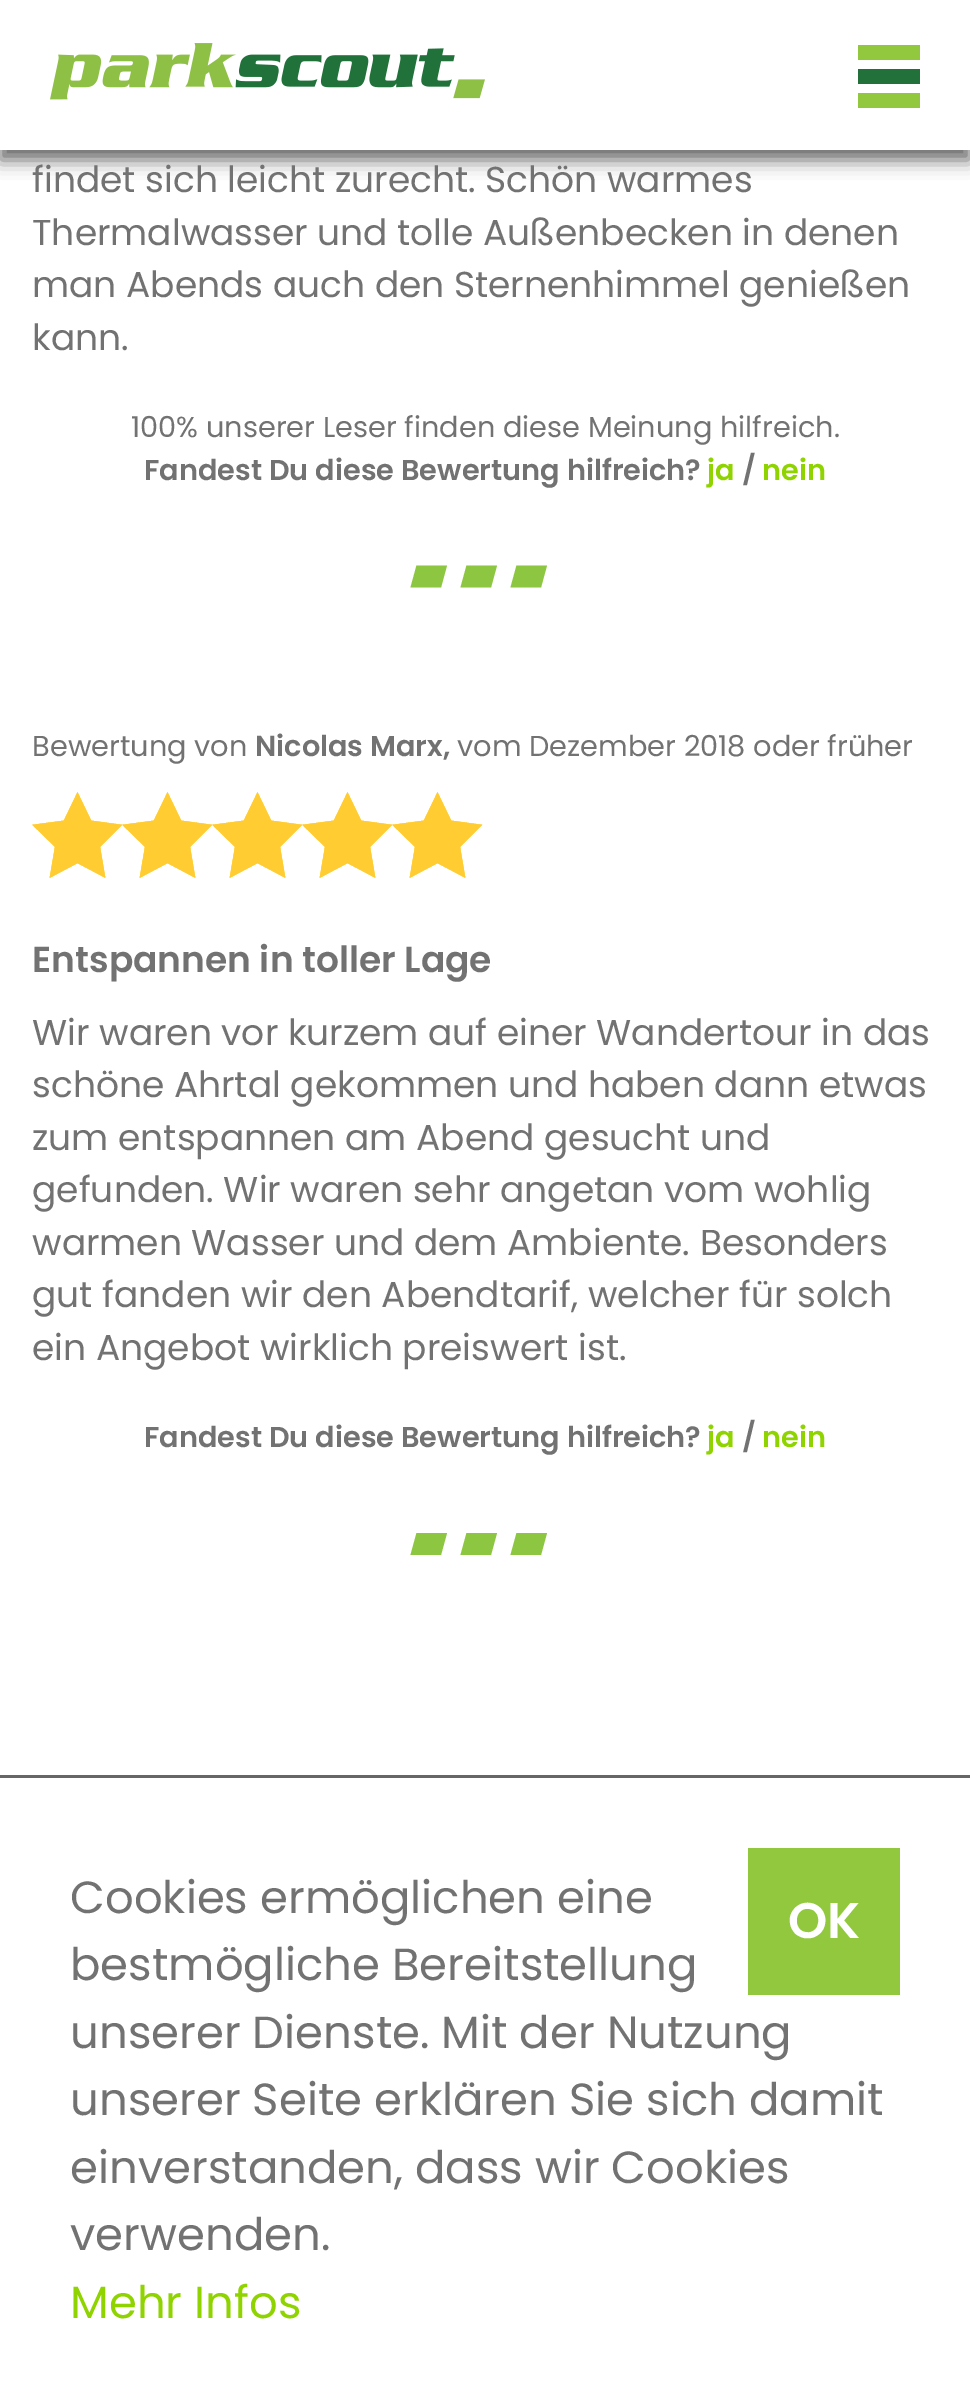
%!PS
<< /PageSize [970 2403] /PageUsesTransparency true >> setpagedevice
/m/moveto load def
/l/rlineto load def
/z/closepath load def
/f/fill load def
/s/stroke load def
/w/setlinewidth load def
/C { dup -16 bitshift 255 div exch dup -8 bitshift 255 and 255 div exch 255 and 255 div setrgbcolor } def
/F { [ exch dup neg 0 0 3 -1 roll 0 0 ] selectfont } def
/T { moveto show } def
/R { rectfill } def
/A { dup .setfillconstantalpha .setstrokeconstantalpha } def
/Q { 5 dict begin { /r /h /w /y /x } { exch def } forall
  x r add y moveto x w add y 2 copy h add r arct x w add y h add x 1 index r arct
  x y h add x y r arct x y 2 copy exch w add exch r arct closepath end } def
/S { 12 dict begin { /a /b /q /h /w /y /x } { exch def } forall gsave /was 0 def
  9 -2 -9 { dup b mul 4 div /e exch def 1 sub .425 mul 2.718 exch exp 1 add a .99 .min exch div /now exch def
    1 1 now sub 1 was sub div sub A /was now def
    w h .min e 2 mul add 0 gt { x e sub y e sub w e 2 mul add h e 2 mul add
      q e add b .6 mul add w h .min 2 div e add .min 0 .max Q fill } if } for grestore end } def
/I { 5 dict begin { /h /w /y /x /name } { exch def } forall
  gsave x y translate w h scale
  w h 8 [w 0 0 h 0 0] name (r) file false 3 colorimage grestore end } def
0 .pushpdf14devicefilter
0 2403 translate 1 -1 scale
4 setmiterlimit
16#FFFFFF C
0 0 970 2403 R
16#646464 C
0 10 970 150 0 9 1 S
16#FFFFFF C
0 0 970 150 R
(1.rgb) 50 43 435 57 I
16#92C83E C
858 45 62 15 R
16#22713A C
858 69 62 15 R
16#92C83E C
858 93 62 15 R
/Poppins-Regular 36 F
16#727272 C
(findet sich leicht zurecht. Schön warmes) 32 192 T
(Thermalwasser und tolle Außenbecken in denen) 32 245 T
(man Abends auch den Sternenhimmel genießen) 32 297 T
(kann.) 32 350 T
/Poppins-Regular 28.8 F
(100% unserer Leser finden diese Meinung hilfreich.) 131 437 T
/Poppins-SemiBold 28.8 F
(Fandest Du diese Bewertung hilfreich?) 144 480 T
16#8FD400 C
(ja) 707 480 T
16#727272 C
(/) 742 480 T
16#8FD400 C
(nein) 762 480 T
16#8DC641 C
447 565.5 m -6 22 l -30.5 0 l 6 -22 l z f
497 565.5 m -6 22 l -30.5 0 l 6 -22 l z f
547 565.5 m -6 22 l -30.5 0 l 6 -22 l z f
/Poppins-Regular 28.8 F
16#727272 C
(Bewertung von) 32 756 T
/Poppins-SemiBold 28.8 F
(Nicolas Marx,) 255 756 T
/Poppins-Regular 28.8 F
(vom Dezember 2018 oder früher) 457 756 T
16#FFCC32 C
1.9 w
77.5 794.5 m 13 27 l 29.5 4 l -21 21 l 5 29.5 l -26.5 -14 l -26.5 14 l 5 -29.5 l -21.5 -21 l 30 -4 l z s
77 795 m 14 26 l 29 5 l -21 20 l 5 30 l -27 -14 l -26 14 l 5 -30 l -21 -20 l 29 -5 l z f
77.5 794.5 m 13 27 l 29.5 4 l -21 21 l 5 29.5 l -26.5 -14 l -26.5 14 l 5 -29.5 l -21.5 -21 l 30 -4 l z s
167.5 794.5 m 13 27 l 29.5 4 l -21 21 l 5 29.5 l -26.5 -14 l -26.5 14 l 5 -29.5 l -21.5 -21 l 30 -4 l z s
167 795 m 14 26 l 29 5 l -21 20 l 5 30 l -27 -14 l -26 14 l 5 -30 l -21 -20 l 29 -5 l z f
167.5 794.5 m 13 27 l 29.5 4 l -21 21 l 5 29.5 l -26.5 -14 l -26.5 14 l 5 -29.5 l -21.5 -21 l 30 -4 l z s
257.5 794.5 m 13 27 l 29.5 4 l -21 21 l 5 29.5 l -26.5 -14 l -26.5 14 l 5 -29.5 l -21.5 -21 l 30 -4 l z s
257 795 m 14 26 l 29 5 l -21 20 l 5 30 l -27 -14 l -26 14 l 5 -30 l -21 -20 l 29 -5 l z f
257.5 794.5 m 13 27 l 29.5 4 l -21 21 l 5 29.5 l -26.5 -14 l -26.5 14 l 5 -29.5 l -21.5 -21 l 30 -4 l z s
347.5 794.5 m 13 27 l 29.5 4 l -21 21 l 5 29.5 l -26.5 -14 l -26.5 14 l 5 -29.5 l -21.5 -21 l 30 -4 l z s
347 795 m 14 26 l 29 5 l -21 20 l 5 30 l -27 -14 l -26 14 l 5 -30 l -21 -20 l 29 -5 l z f
347.5 794.5 m 13 27 l 29.5 4 l -21 21 l 5 29.5 l -26.5 -14 l -26.5 14 l 5 -29.5 l -21.5 -21 l 30 -4 l z s
437.5 794.5 m 13 27 l 29.5 4 l -21 21 l 5 29.5 l -26.5 -14 l -26.5 14 l 5 -29.5 l -21.5 -21 l 30 -4 l z s
437 795 m 14 26 l 29 5 l -21 20 l 5 30 l -27 -14 l -26 14 l 5 -30 l -21 -20 l 29 -5 l z f
437.5 794.5 m 13 27 l 29.5 4 l -21 21 l 5 29.5 l -26.5 -14 l -26.5 14 l 5 -29.5 l -21.5 -21 l 30 -4 l z s
/Poppins-SemiBold 36 F
16#727272 C
(Entspannen in toller Lage) 32 972 T
/Poppins-Regular 36 F
(Wir waren vor kurzem auf einer Wandertour in das) 32 1045 T
(schöne Ahrtal gekommen und haben dann etwas) 32 1097 T
(zum entspannen am Abend gesucht und) 32 1150 T
(gefunden. Wir waren sehr angetan vom wohlig) 32 1202 T
(warmen Wasser und dem Ambiente. Besonders) 32 1255 T
(gut fanden wir den Abendtarif, welcher für solch) 32 1307 T
(ein Angebot wirklich preiswert ist.) 32 1360 T
/Poppins-SemiBold 28.8 F
(Fandest Du diese Bewertung hilfreich?) 144 1447 T
16#8FD400 C
(ja) 707 1447 T
16#727272 C
(/) 742 1447 T
16#8FD400 C
(nein) 762 1447 T
16#8DC641 C
447 1533 m -6 22 l -30.5 0 l 6 -22 l z f
497 1533 m -6 22 l -30.5 0 l 6 -22 l z f
547 1533 m -6 22 l -30.5 0 l 6 -22 l z f
16#666666 C
0 1775 970 3 R
/Poppins-Regular 45 F
16#727272 C
(Cookies ermöglichen eine) 70 1913 T
(bestmögliche Bereitstellung) 70 1980 T
(unserer Dienste. Mit der Nutzung) 70 2048 T
(unserer Seite erklären Sie sich damit) 70 2115 T
(einverstanden, dass wir Cookies) 70 2183 T
(verwenden.) 70 2250 T
16#8FD400 C
(Mehr Infos) 70 2318 T
16#92C83E C
748 1848 152 147 R
/Poppins-SemiBold 50 F
16#FFFFFF C
(OK) 788 1938 T
.poppdf14devicefilter showpage
